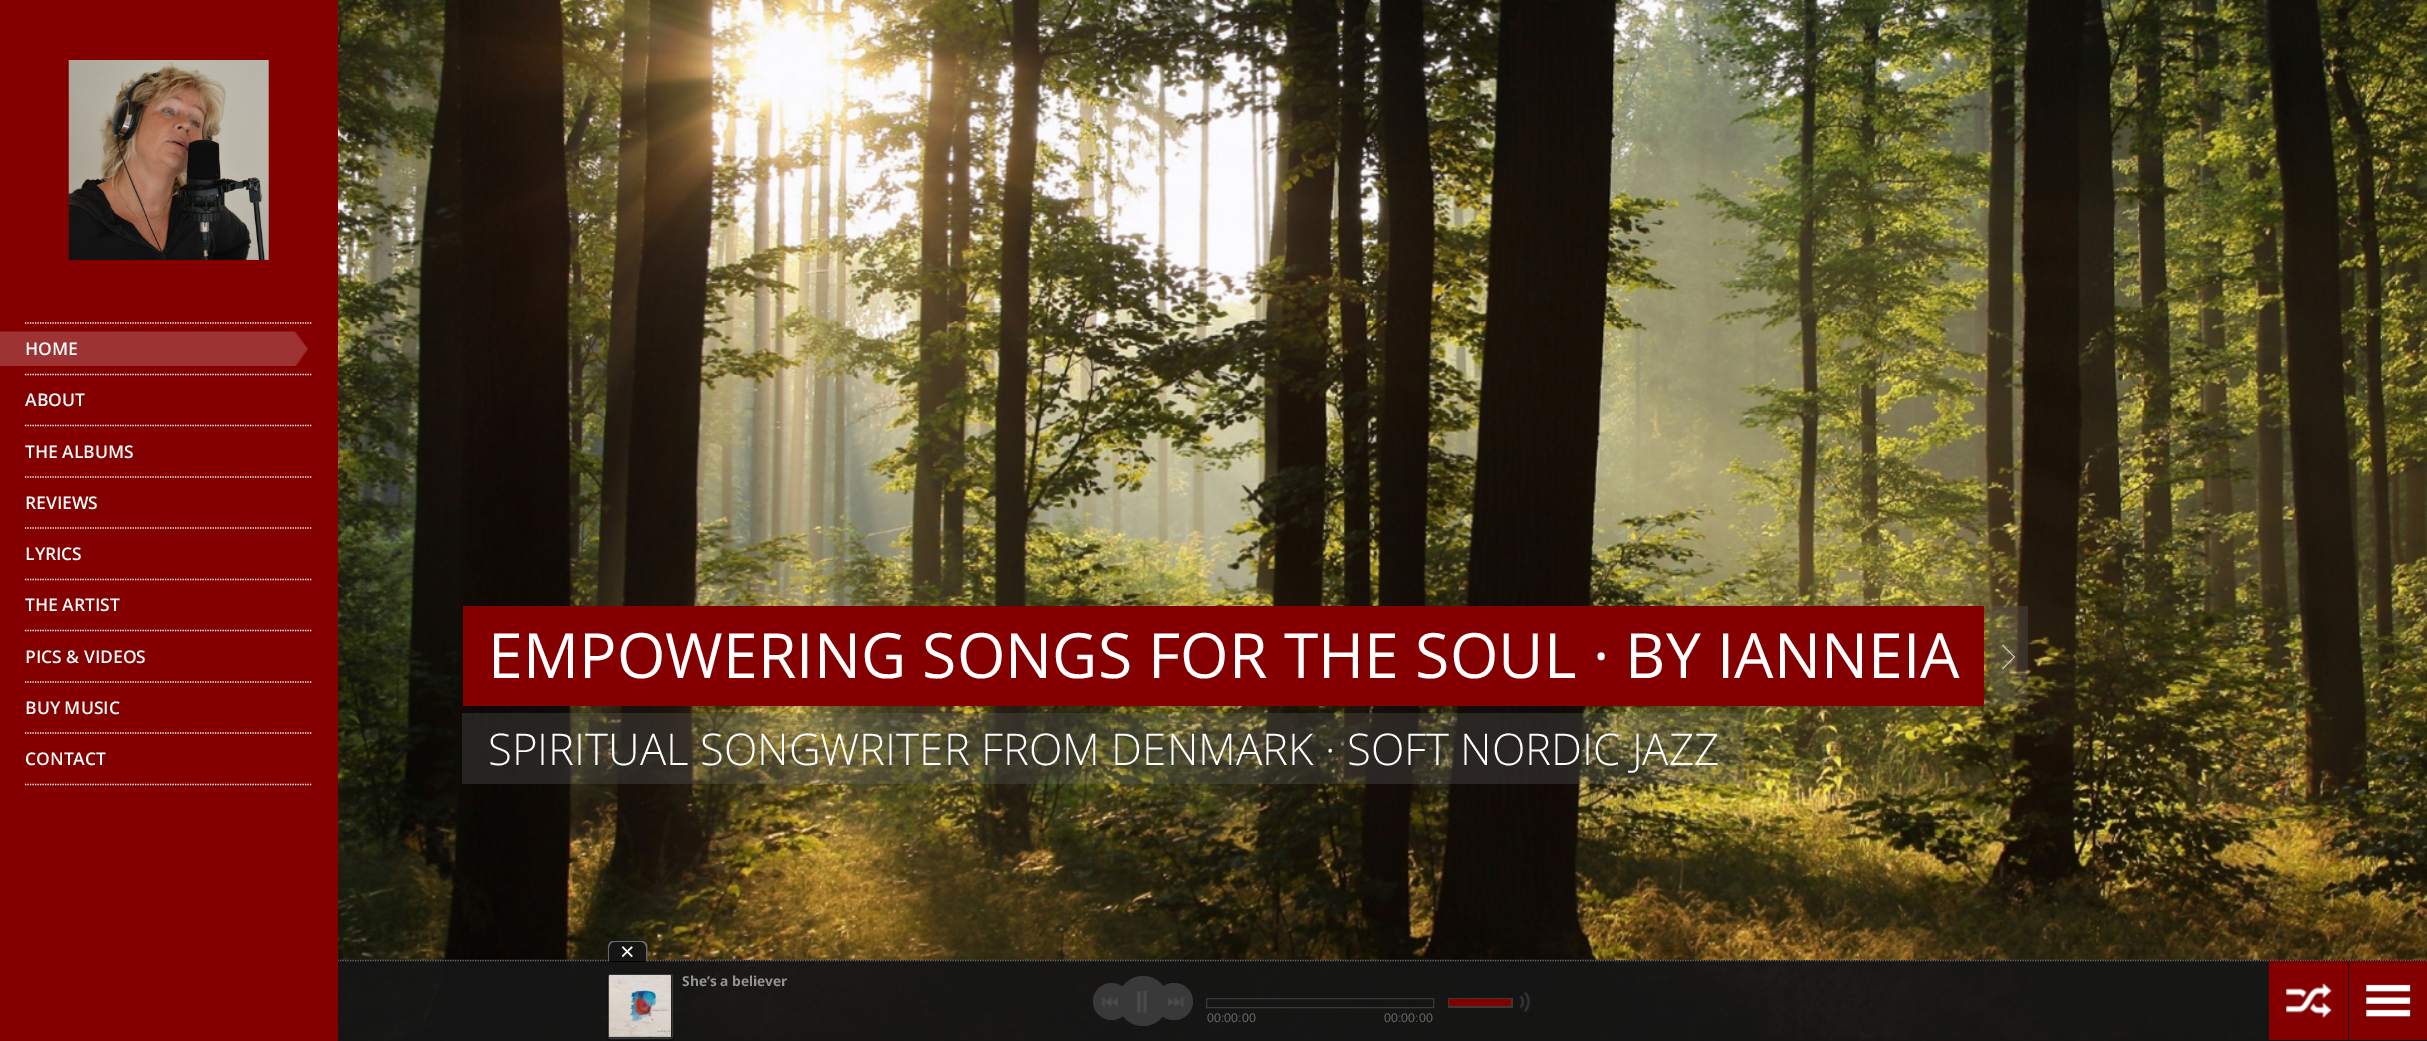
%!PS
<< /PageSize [2427 1041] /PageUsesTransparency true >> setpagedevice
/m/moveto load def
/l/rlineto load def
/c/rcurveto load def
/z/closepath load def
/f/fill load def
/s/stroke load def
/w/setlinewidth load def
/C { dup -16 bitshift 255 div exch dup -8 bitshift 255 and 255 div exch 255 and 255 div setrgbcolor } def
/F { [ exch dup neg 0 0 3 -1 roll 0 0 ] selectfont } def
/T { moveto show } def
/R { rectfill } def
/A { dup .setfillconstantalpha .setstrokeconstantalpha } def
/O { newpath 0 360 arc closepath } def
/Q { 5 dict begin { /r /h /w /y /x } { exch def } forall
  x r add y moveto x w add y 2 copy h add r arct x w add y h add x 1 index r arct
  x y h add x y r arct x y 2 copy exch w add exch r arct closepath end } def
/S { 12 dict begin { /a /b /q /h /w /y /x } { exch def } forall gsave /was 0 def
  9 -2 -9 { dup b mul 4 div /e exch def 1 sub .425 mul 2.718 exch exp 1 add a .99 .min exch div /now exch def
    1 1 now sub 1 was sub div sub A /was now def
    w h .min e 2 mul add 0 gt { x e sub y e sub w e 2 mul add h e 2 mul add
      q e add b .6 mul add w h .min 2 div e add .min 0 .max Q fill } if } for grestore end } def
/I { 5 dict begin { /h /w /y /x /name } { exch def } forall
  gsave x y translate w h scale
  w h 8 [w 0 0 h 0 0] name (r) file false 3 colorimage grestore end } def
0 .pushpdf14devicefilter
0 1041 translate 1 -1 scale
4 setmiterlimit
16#FFFFFF C
0 0 2427 1041 R
(3.rgb) 338 0 2089 1041 I
16#000000 C
0 1041 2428 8 0 2.5 1 S
0.95 A
16#151515 C
338 960 2089 81 R
1 A
16#6A6A6A C
1.2 w
[1.25 1.25] 0 setdash
0 960.5 m 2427.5 0 l s
16#840000 C
0 0 338 1041 R
(1.rgb) 68 60 201 200 I
16#FFFFFF C
25 323 m 287.5 0 l s
25 374.5 m 287.5 0 l s
(2.rgb) 0 331 308 35 I
/OpenSans-SemiBold 17.5 F
(HOME) 25 355 T
25 425.5 m 287.5 0 l s
(ABOUT) 25 406 T
25 477 m 287.5 0 l s
(THE ALBUMS) 25 458 T
25 528 m 287.5 0 l s
(REVIEWS) 25 509 T
25 579.5 m 287.5 0 l s
(LYRICS) 25 560 T
25 630.5 m 287.5 0 l s
(THE ARTIST) 25 611 T
25 682 m 287.5 0 l s
(PICS & VIDEOS) 25 663 T
25 733 m 287.5 0 l s
(BUY MUSIC) 25 714 T
25 784.5 m 287.5 0 l s
(CONTACT) 25 765 T
16#840000 C
463 606 1521 100 R
/OpenSans-Regular 62.5 F
16#FFFFFF C
(EMPOWERING SONGS FOR THE SOUL · BY IANNEIA) 488 678 T
0.28 A
16#686868 C
1990 606 38 101 R
1 A
(4.rgb) 2002 645 13 24 I
0.28 A
462 713 1282 71 R
/OpenSans-Light 43.75 F
1 A
16#FFFFFF C
(SPIRITUAL SONGWRITER FROM DENMARK · SOFT NORDIC JAZZ) 488 765 T
(5.rgb) 607 941 41 21 I
16#6A6A6A C
614 942 m -1.5 0 -3 1 -3.5 2 c -1 -1 l .5 -1 1.5 -1.5 2.5 -2 c 31 0 l 1 .5 2 1 3 2 c -1.5 1 l -.5 -1 -2 -2 -3.5 -2 c z f
647.5 962 m -.5 0 l -1 -1 l 0 -13 l 0 -1.5 -.5 -3 -1.5 -4 c 1.5 -1 l 1.5 2.5 l z f
16#000000 C
647 962 m -39 0 l 1 -1 l 37 0 l z f
16#6A6A6A C
608 962 m 1 -1 l 0 -13 l 0 -1.5 .5 -3 1.5 -4 c -1 -1 l -1 1.5 -1.5 3 -1.5 5 c z f
/LiberationSans-Regular 25 F
16#FFFFFF C
(×) 620 960 T
16#000000 C
608 976 65 65 2.5 2 .5 S
16#373737 C
1 w
[] 0 setdash
608.5 974.5 64 64 2 Q s
(6.rgb) 608 975 64 63 I
/OpenSans-Bold 13.75 F
16#959595 C
(She’s a believer) 682 986 T
16#393939 C
1111.5 1001.5 18.5 O f
(7.rgb) 1102 997 17 10 I
1155 983 38 37 18.5 Q f
(9.rgb) 1167 997 17 10 I
1143 1001 25 O f
(8.rgb) 1137 991 10 22 I
1448 998 65 10 R
16#840000 C
1449 999 62 7 R
(10.rgb) 1519 991 12 21 I
16#393939 C
1206.5 998.5 227 9 rectstroke
/LiberationSans-Regular 12.5 F
16#666666 C
(00:00:00) 1207 1022 T
(00:00:00) 1384 1022 T
16#840000 C
2269 961 79 79 R
(11.rgb) 2286 983 46 35 I
2349 961 78 79 R
(12.rgb) 2366 984 45 33 I
.poppdf14devicefilter showpage
